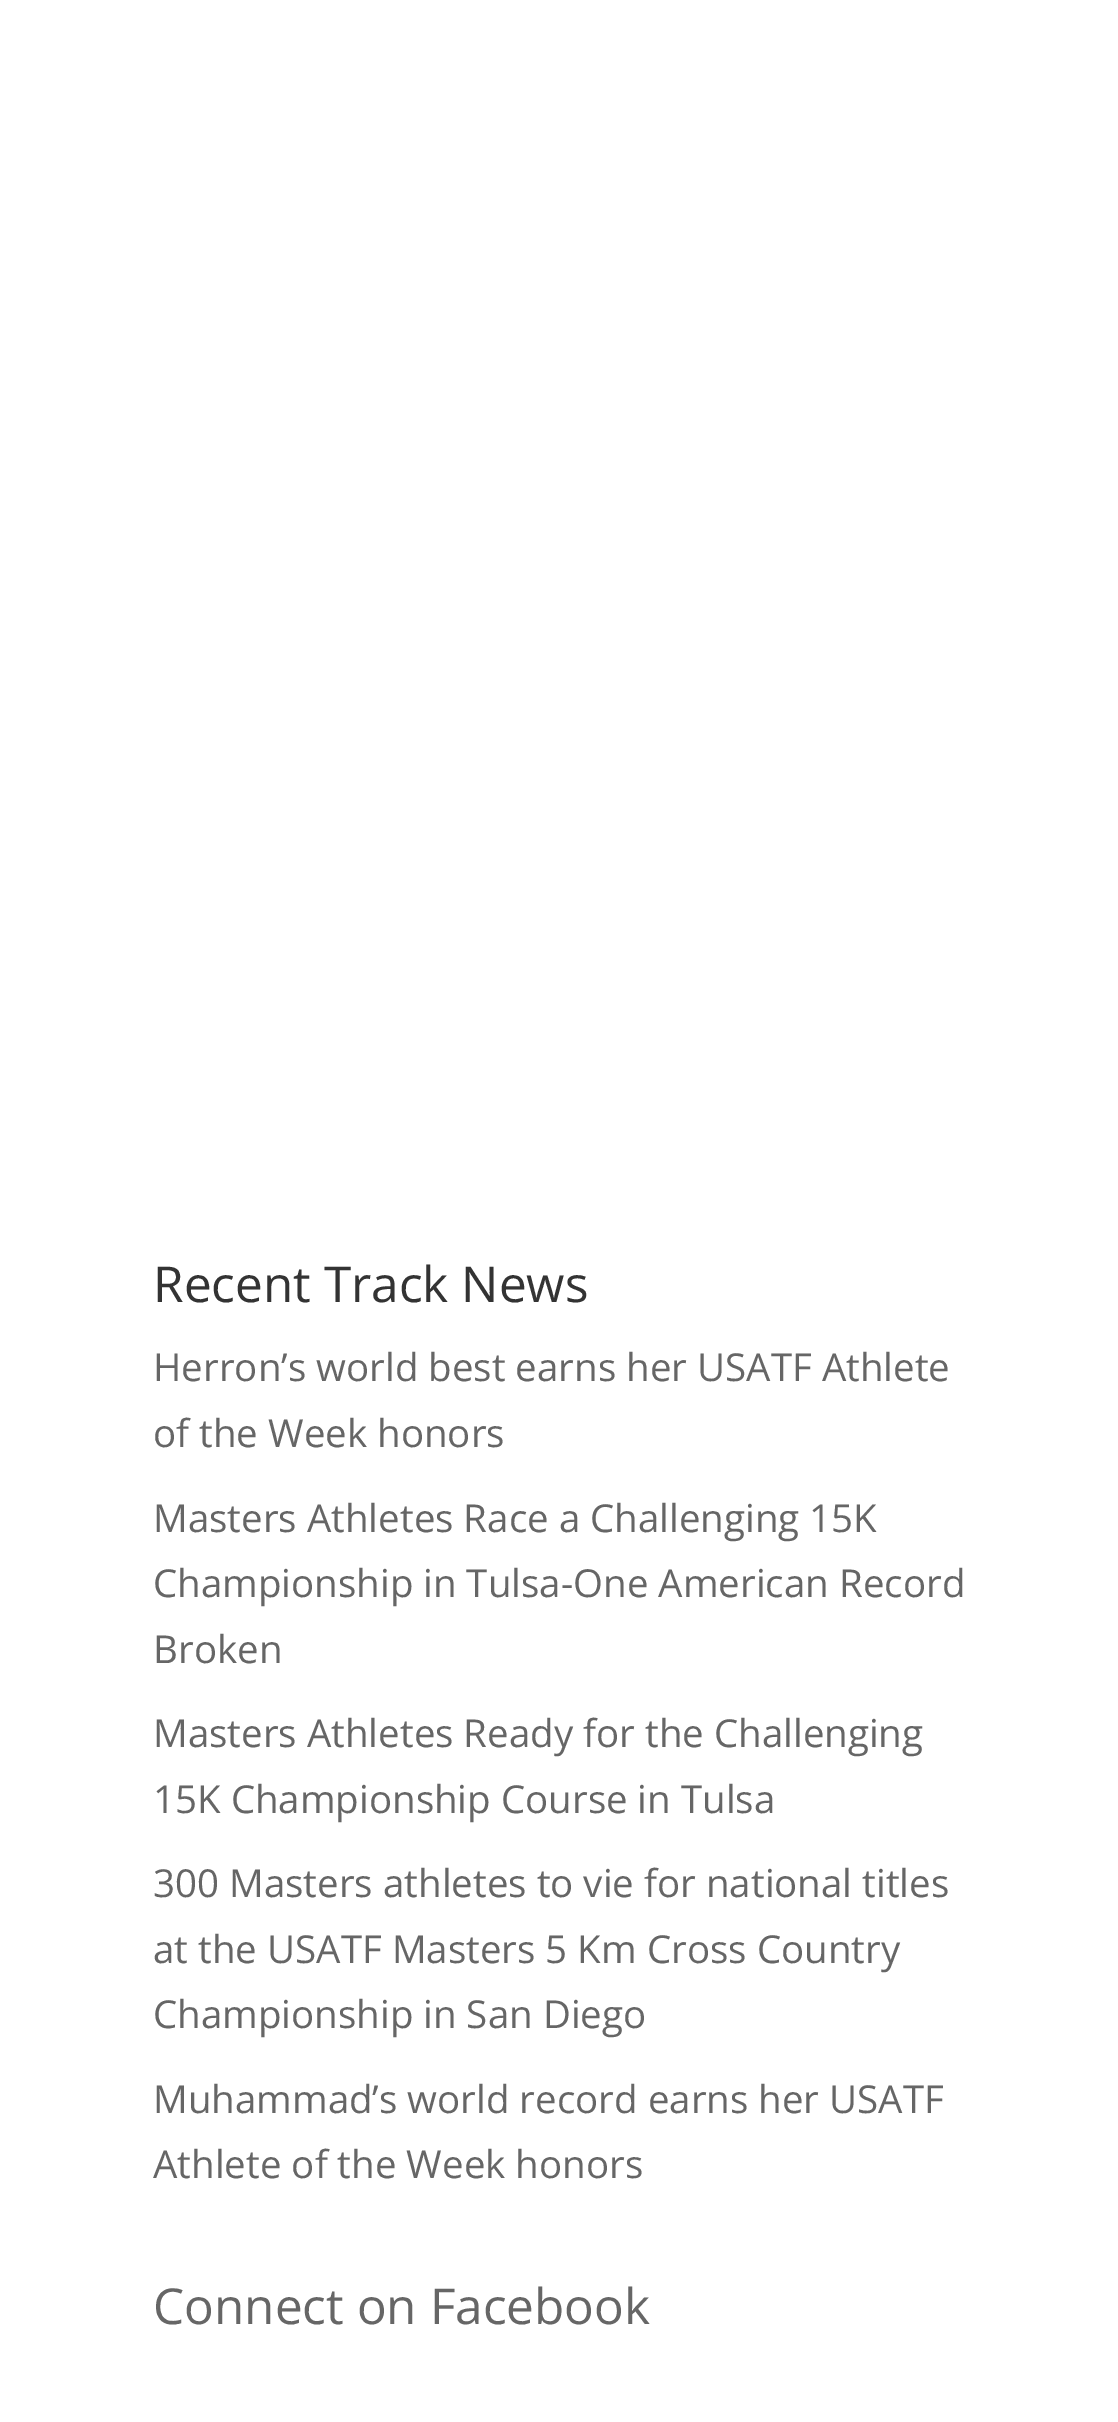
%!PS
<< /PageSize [1118 2422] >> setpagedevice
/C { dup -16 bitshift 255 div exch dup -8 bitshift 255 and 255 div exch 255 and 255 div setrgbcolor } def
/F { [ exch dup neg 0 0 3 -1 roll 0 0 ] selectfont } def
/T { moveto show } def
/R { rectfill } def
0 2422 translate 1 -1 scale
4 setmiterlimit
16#FFFFFF C
0 0 1118 2422 R
/OpenSans-Regular 49.5 F
16#333333 C
(Recent Track News) 153 1302 T
/OpenSans-Regular 38.5 F
16#666666 C
(Herron’s world best earns her USATF Athlete) 153 1381 T
(of the Week honors) 153 1447 T
(Masters Athletes Race a Challenging 15K) 153 1532 T
(Championship in Tulsa-One American Record) 153 1597 T
(Broken) 153 1663 T
(Masters Athletes Ready for the Challenging) 153 1747 T
(15K Championship Course in Tulsa) 153 1813 T
(300 Masters athletes to vie for national titles) 153 1897 T
(at the USATF Masters 5 Km Cross Country) 153 1963 T
(Championship in San Diego) 153 2028 T
(Muhammad’s world record earns her USATF) 153 2113 T
(Athlete of the Week honors) 153 2178 T
/OpenSans-Regular 49.5 F
(Connect on Facebook) 153 2324 T
showpage
